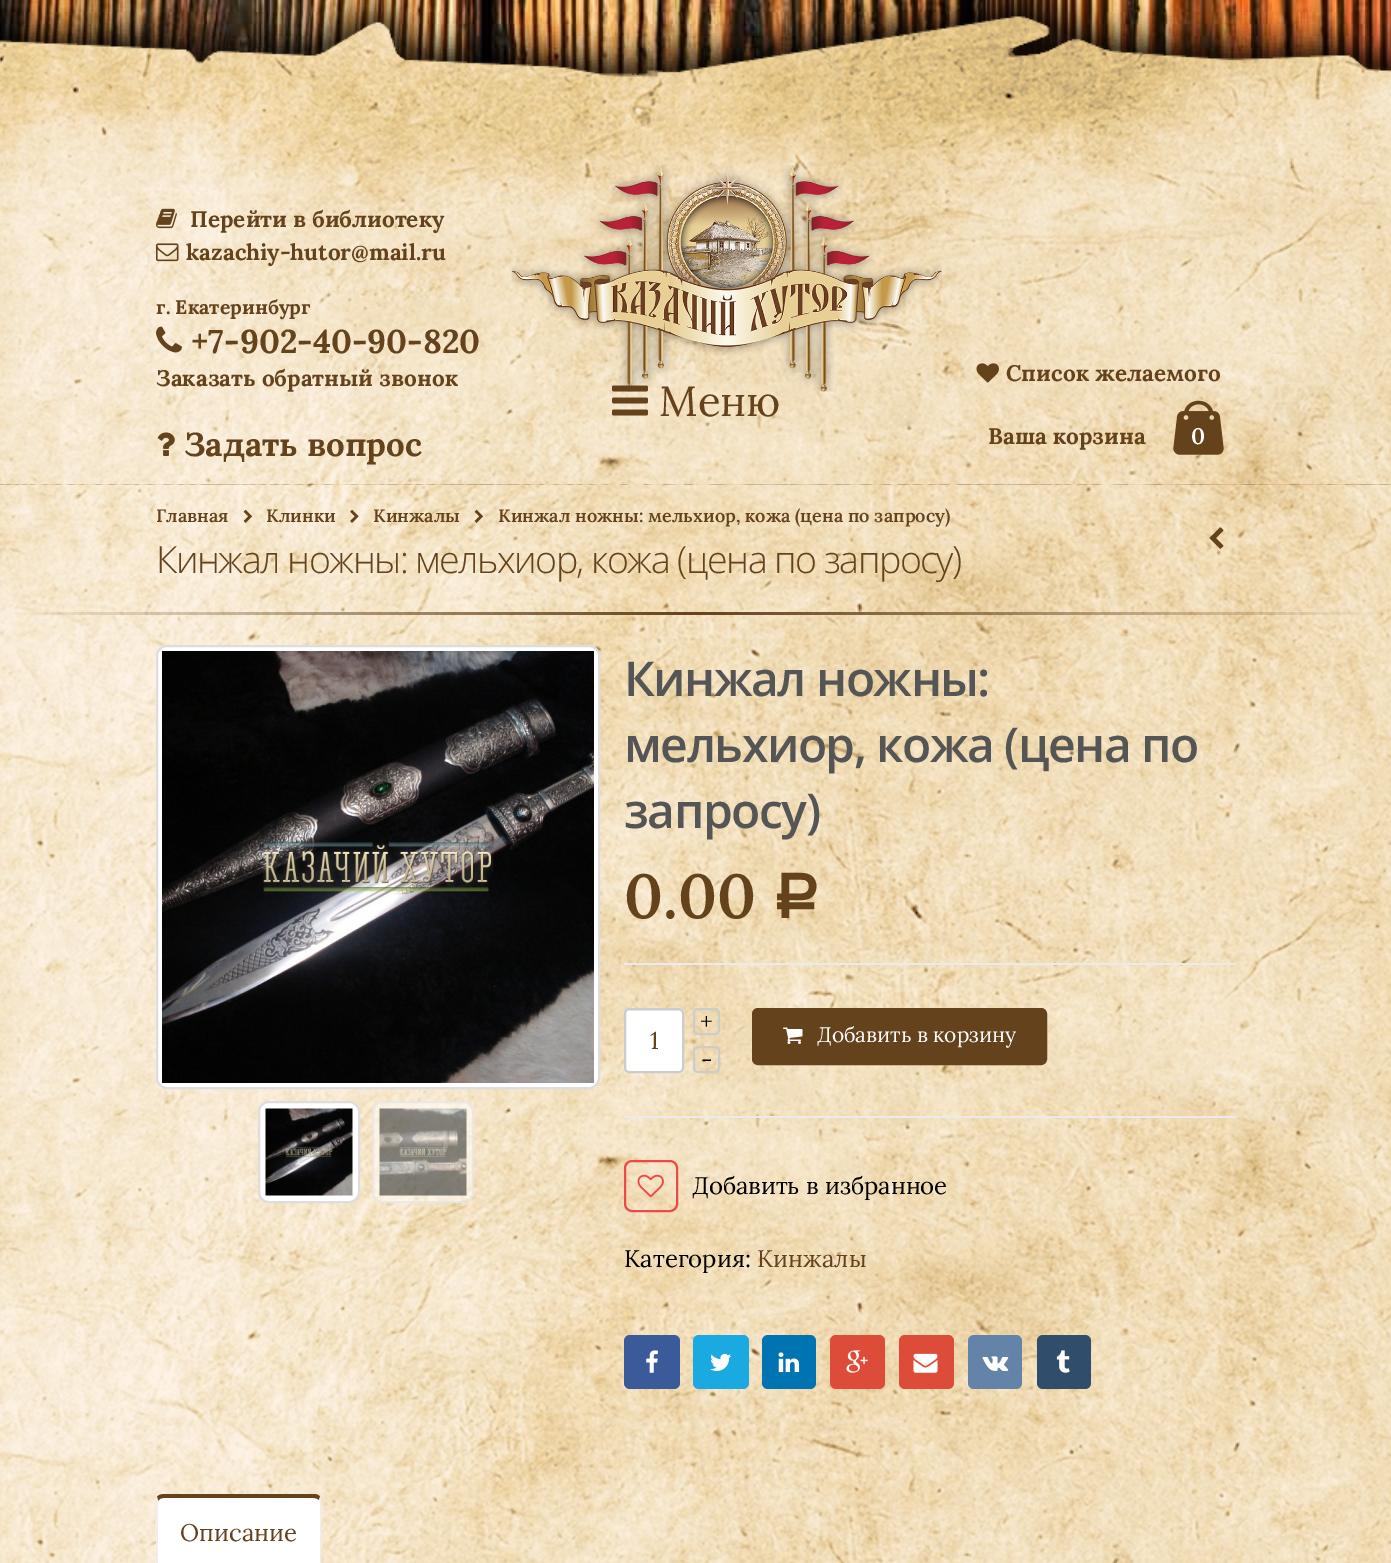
%!PS
<< /PageSize [1391 1563] /PageUsesTransparency true >> setpagedevice
/m/moveto load def
/l/rlineto load def
/c/rcurveto load def
/z/closepath load def
/f/fill load def
/s/stroke load def
/q/gsave load def
/Q_/grestore load def
/w/setlinewidth load def
/C { dup -16 bitshift 255 div exch dup -8 bitshift 255 and 255 div exch 255 and 255 div setrgbcolor } def
/F { [ exch dup neg 0 0 3 -1 roll 0 0 ] selectfont } def
/T { moveto show } def
/R { rectfill } def
/A { dup .setfillconstantalpha .setstrokeconstantalpha } def
/Q { 5 dict begin { /r /h /w /y /x } { exch def } forall
  x r add y moveto x w add y 2 copy h add r arct x w add y h add x 1 index r arct
  x y h add x y r arct x y 2 copy exch w add exch r arct closepath end } def
/I { 5 dict begin { /h /w /y /x /name } { exch def } forall
  gsave x y translate w h scale
  w h 8 [w 0 0 h 0 0] name (r) file false 3 colorimage grestore end } def
0 .pushpdf14devicefilter
0 1563 translate 1 -1 scale
4 setmiterlimit
16#FFFFFF C
0 0 1391 1563 R
(1.rgb) 0 0 1391 1446 I
(2.rgb) 0 0 1391 485 I
(3.rgb) 156 208 21 21 I
/Lora-Bold 22.5 F
16#63421C C
(Перейти в библиотеку) 190 227 T
(4.rgb) 156 243 23 19 I
(kazachiy-hutor@mail.ru) 186 260 T
/Lora-Bold 19.5 F
(г. Екатеринбург) 156 314 T
(5.rgb) 156 326 26 27 I
/Lora-Bold 33 F
(+7-902-40-90-820) 191 353 T
/Lora-Bold 22.5 F
(Заказать обратный звонок) 156 386 T
(6.rgb) 157 432 18 24 I
/Lora-Bold 33 F
(Задать вопрос) 184 456 T
(7.rgb) 511 165 431 227 I
(8.rgb) 976 363 23 20 I
/Lora-Bold 22.5 F
(Список желаемого) 1006 381 T
(Ваша корзина) 988 444 T
(9.rgb) 1173 400 51 55 I
/Lora-SemiBold 22.5 F
16#FFFFFF C
(0) 1191 444 T
(10.rgb) 612 385 36 31 I
/Lora-Regular 42 F
16#63421C C
(Меню) 659 416 T
(11.rgb) 0 484 1391 1079 I
/Lora-SemiBold 18 F
(Главная) 156 522 T
(12.rgb) 243 509 9 14 I
(Клинки) 266 522 T
(13.rgb) 350 509 9 14 I
(Кинжалы) 373 522 T
(14.rgb) 474 509 9 14 I
(Кинжал ножны: мельхиор, кожа \(цена по запросу\)) 498 522 T
(15.rgb) 1209 527 15 22 I
/OpenSans-Light 37.5 F
156 573 m -1.5 0 (Кинжал ножны: мельхиор, кожа \(цена по запросу\)) ashow
16#FFFFFF C
157 646 442 442 10 Q q f Q_
16#DDDDDD C
2 w
s
(16.rgb) 162 651 432 432 I
16#FFFFFF C
259 1102 100 100 10 Q q f Q_
16#DDDDDD C
s
(17.rgb) 265 1108 88 88 I
0.5 A
16#FFFFFF C
372 1101 102 102 11 Q f
16#DDDDDD C
373 1102 100 100 10 Q s
1 A
(18.rgb) 379 1108 88 88 I
/OpenSans-SemiBold 48 F
16#555555 C
624 696 m -1.5 0 (Кинжал ножны:) ashow
624 762 m -1.5 0 (мельхиор, кожа \(цена по) ashow
624 828 m -1.5 0 (запросу\)) ashow
/Lora-SemiBold 62 F
16#63421C C
(0.00) 624 918 T
/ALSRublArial-Bold 62 F
(Р) 772 918 T
16#EBEBEB C
624 963 612 2 R
624 1116 612 2 R
16#CCCCCC C
694 1009 25 25 4 Q s
/Lora-Regular 24 F
16#000000 C
(+) 700 1030 T
16#FFFFFF C
624 1008 60 65 5 Q f
16#ECECEC C
628 1011 m 43 0 l 3 0 11 -2 11 3 c 0 56 l 1 0 1 -1 1 -2 c 0 -55 l 0 -2 -1 -3 -3 -3 c -51 0 l -2 0 -3 1 -3 3 c 0 1 l 0 -2 1 -3 2 -3 c z f
16#CCCCCC C
625 1009 58 63 4 Q s
16#63421C C
(1) 650 1049 T
16#CCCCCC C
694 1047 25 25 4 Q s
16#000000 C
(-) 701 1068 T
16#63421C C
753 1009 293 55 5 Q q f Q_
s
(19.rgb) 783 1027 20 17 I
/Lora-Regular 21 F
16#FFFFFF C
(Добавить в корзину) 817 1042 T
16#ED4949 C
625 1161 52 50 7 Q s
(20.rgb) 637 1174 27 24 I
/Lora-Regular 24 F
16#000000 C
(Добавить в избранное) 692 1194 T
(Категория:) 624 1267 T
16#63421C C
(Кинжалы) 757 1267 T
16#3B5A9A C
624 1335 56 54 6 Q f
(21.rgb) 646 1350 12 23 I
16#1AA9E1 C
693 1335 56 54 6 Q f
(22.rgb) 710 1353 21 18 I
16#0073B2 C
762 1335 54 54 6 Q f
(23.rgb) 778 1352 22 21 I
16#DD4B39 C
830 1335 55 54 6 Q f
(24.rgb) 846 1350 22 23 I
899 1335 55 54 6 Q f
(25.rgb) 913 1353 25 20 I
16#6383A8 C
968 1335 54 54 6 Q f
(26.rgb) 982 1356 27 15 I
16#304E6C C
1037 1335 54 54 6 Q f
(27.rgb) 1056 1350 14 23 I
16#FFFFFF C
164 1494 m 149 0 l 4.5 0 8 3.5 8 8 c 0 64 l -165 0 l 0 -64 l 0 -4.5 3.5 -8 8 -8 c z f
16#63421C C
164 1494 m -3 0 -6 1 -7 3 c 1 4 l 1 -2 3 -3 6 -3 c 150 0 l 2 0 4 1 5 2 c 1 -3 l -1 -2 -3 -3 -6 -3 c z f
16#EEEEEE C
320 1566 m 1 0 l 0 -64 l 0 -2 0 -3 -1 -5 c -1 3 l 1 2 l z f
156 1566 m 2 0 l 0 -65 l -1 -4 l -1 5 l z f
16#63421C C
(Описание) 180 1541 T
.poppdf14devicefilter showpage
